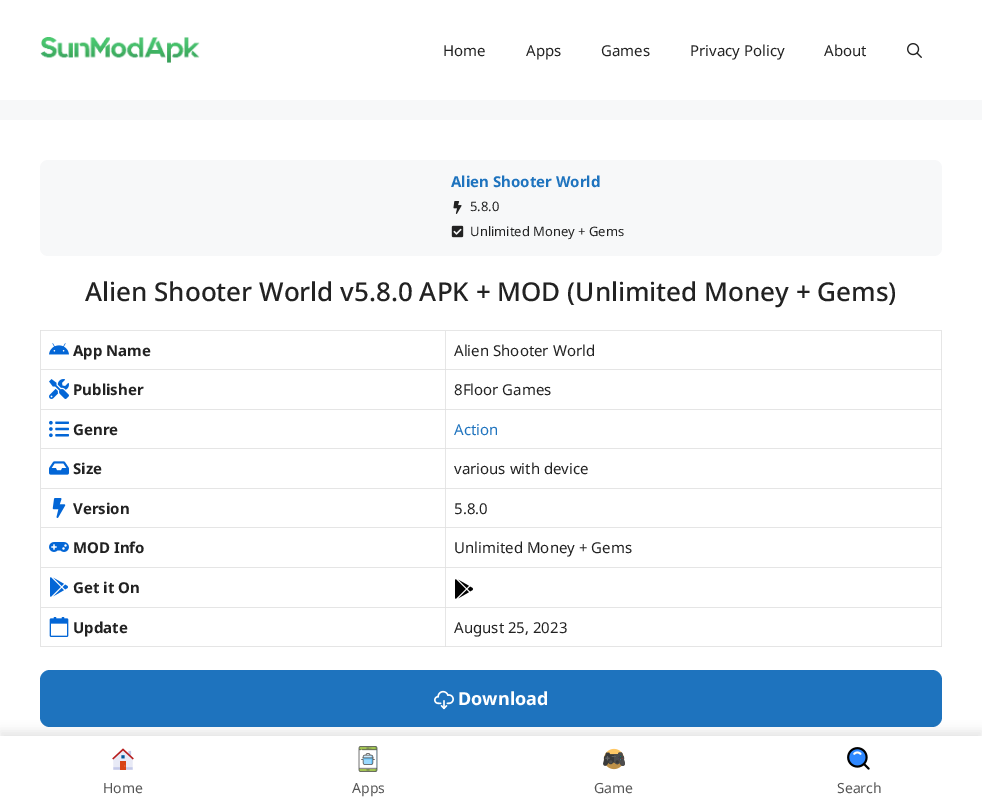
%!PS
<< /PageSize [982 808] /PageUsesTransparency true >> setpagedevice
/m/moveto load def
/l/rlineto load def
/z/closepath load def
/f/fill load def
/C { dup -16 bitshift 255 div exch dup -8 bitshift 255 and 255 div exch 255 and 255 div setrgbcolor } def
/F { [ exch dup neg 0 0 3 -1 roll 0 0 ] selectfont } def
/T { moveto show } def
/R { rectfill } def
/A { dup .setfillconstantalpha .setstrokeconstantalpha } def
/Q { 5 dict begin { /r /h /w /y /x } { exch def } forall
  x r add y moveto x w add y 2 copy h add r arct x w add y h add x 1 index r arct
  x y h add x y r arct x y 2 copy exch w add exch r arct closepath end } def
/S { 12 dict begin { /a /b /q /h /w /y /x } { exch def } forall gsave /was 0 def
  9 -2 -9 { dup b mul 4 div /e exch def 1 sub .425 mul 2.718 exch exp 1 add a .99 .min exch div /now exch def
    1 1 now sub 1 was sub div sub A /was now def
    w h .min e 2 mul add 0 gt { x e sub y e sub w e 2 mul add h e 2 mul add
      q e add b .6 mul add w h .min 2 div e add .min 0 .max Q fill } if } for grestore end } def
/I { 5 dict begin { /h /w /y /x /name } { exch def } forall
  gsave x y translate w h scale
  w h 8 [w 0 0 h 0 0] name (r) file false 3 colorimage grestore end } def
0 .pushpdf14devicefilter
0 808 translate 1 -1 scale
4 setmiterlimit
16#F7F8F9 C
0 0 982 808 R
16#FFFFFF C
0 0 982 100 R
(1.rgb) 40 37 160 26 I
/NotoSans-Regular 15 F
16#222222 C
(Home) 443 56 T
(Apps) 526 56 T
(Games) 601 56 T
(Privacy Policy) 690 56 T
(About) 824 56 T
(2.rgb) 907 43 15 15 I
16#FFFFFF C
0 120 982 616 R
16#F7F8F9 C
40 160 902 96 8 Q f
/NotoSans-Bold 15 F
16#1E73BE C
(Alien Shooter World) 451 187 T
(3.rgb) 453 201 9 13 I
/NotoSans-Regular 13 F
16#222222 C
(5.8.0) 470 211 T
(4.rgb) 451 225 13 13 I
(Unlimited Money + Gems) 470 236 T
/NotoSans-Medium 26 F
(Alien Shooter World v5.8.0 APK + MOD \(Unlimited Money + Gems\)) 85 301 T
16#E6E6E6 C
40 330 m 902 0 l 0 1 l -901 0 l z f
0.1 A
16#000000 C
40 647 m 0 -317 l 1 1 l 0 316 l z f
1 A
16#E6E6E6 C
446 331 m 0 39 l -1 -1 l 0 -38 l z f
0.1 A
16#000000 C
446 370 m -405 0 l 0 -1 l 404 0 l z f
1 A
(5.rgb) 49 343 20 12 I
/NotoSans-Bold 15 F
16#222222 C
(App Name) 73 356 T
16#E6E6E6 C
942 331 m 0 39 l -1 -1 l 0 -38 l z f
0.1 A
16#000000 C
942 370 m -496 0 l 0 -1 l 495 0 l z f
/NotoSans-Regular 15 F
1 A
16#222222 C
(Alien Shooter World) 454 356 T
16#E6E6E6 C
446 370 m 0 40 l -1 -1 l 0 -39 l z f
0.1 A
16#000000 C
446 410 m -405 0 l 0 -1 l 404 0 l z f
1 A
(6.rgb) 49 379 20 20 I
/NotoSans-Bold 15 F
16#222222 C
(Publisher) 73 395 T
16#E6E6E6 C
942 370 m 0 40 l -1 -1 l 0 -39 l z f
0.1 A
16#000000 C
942 410 m -496 0 l 0 -1 l 495 0 l z f
/NotoSans-Regular 15 F
1 A
16#222222 C
(8Floor Games) 454 395 T
16#E6E6E6 C
446 410 m 0 39 l -1 -1 l 0 -38 l z f
0.1 A
16#000000 C
446 449 m -405 0 l 0 -1 l 404 0 l z f
1 A
(7.rgb) 49 420 20 18 I
/NotoSans-Bold 15 F
16#222222 C
(Genre) 73 435 T
16#E6E6E6 C
942 410 m 0 39 l -1 -1 l 0 -38 l z f
0.1 A
16#000000 C
942 449 m -496 0 l 0 -1 l 495 0 l z f
/NotoSans-Regular 15 F
1 A
16#1E73BE C
(Action) 454 435 T
16#E6E6E6 C
446 449 m 0 40 l -1 -1 l 0 -39 l z f
0.1 A
16#000000 C
446 489 m -405 0 l 0 -1 l 404 0 l z f
1 A
(8.rgb) 49 461 20 14 I
/NotoSans-Bold 15 F
16#222222 C
(Size) 73 474 T
16#E6E6E6 C
942 449 m 0 40 l -1 -1 l 0 -39 l z f
0.1 A
16#000000 C
942 489 m -496 0 l 0 -1 l 495 0 l z f
/NotoSans-Regular 15 F
1 A
16#222222 C
(various with device) 454 474 T
16#E6E6E6 C
446 489 m 0 39 l -1 -1 l 0 -38 l z f
0.1 A
16#000000 C
446 528 m -405 0 l 0 -1 l 404 0 l z f
1 A
(9.rgb) 52 498 14 20 I
/NotoSans-Bold 15 F
16#222222 C
(Version) 73 514 T
16#E6E6E6 C
942 489 m 0 39 l -1 -1 l 0 -38 l z f
0.1 A
16#000000 C
942 528 m -496 0 l 0 -1 l 495 0 l z f
/NotoSans-Regular 15 F
1 A
16#222222 C
(5.8.0) 454 514 T
16#E6E6E6 C
446 528 m 0 40 l -1 -1 l 0 -39 l z f
0.1 A
16#000000 C
446 568 m -405 0 l 0 -1 l 404 0 l z f
1 A
(10.rgb) 49 542 20 10 I
/NotoSans-Bold 15 F
16#222222 C
(MOD Info) 73 553 T
16#E6E6E6 C
942 528 m 0 40 l -1 -1 l 0 -39 l z f
0.1 A
16#000000 C
942 568 m -496 0 l 0 -1 l 495 0 l z f
/NotoSans-Regular 15 F
1 A
16#222222 C
(Unlimited Money + Gems) 454 553 T
16#E6E6E6 C
446 568 m 0 40 l -1 -1 l 0 -39 l z f
0.1 A
16#000000 C
446 608 m -405 0 l 0 -1 l 404 0 l z f
1 A
(11.rgb) 50 577 18 20 I
/NotoSans-Bold 15 F
16#222222 C
(Get it On) 73 593 T
16#E6E6E6 C
942 568 m 0 40 l -1 -1 l 0 -39 l z f
0.1 A
16#000000 C
942 608 m -496 0 l 0 -1 l 495 0 l z f
1 A
(12.rgb) 455 579 18 20 I
16#E6E6E6 C
446 608 m 0 39 l -1 -1 l 0 -38 l z f
0.1 A
16#000000 C
446 647 m -405 0 l 0 -1 l 404 0 l z f
1 A
(13.rgb) 49 617 20 20 I
16#222222 C
(Update) 73 633 T
16#E6E6E6 C
942 608 m 0 39 l -1 -1 l 0 -38 l z f
0.1 A
16#000000 C
942 647 m -496 0 l 0 -1 l 495 0 l z f
/NotoSans-Regular 15 F
1 A
16#222222 C
(August 25, 2023) 454 633 T
16#1E73BE C
40 670 902 57 10 Q f
(14.rgb) 434 690 20 20 I
/NotoSans-Bold 18 F
16#FFFFFF C
(Download) 458 705 T
16#000000 C
0 731 982 72 0 5 .1 S
16#FFFFFF C
0 736 982 72 R
(15.rgb) 112 748 22 22 I
/NotoSans-Regular 14 F
16#555555 C
(Home) 103 793 T
(16.rgb) 358 746 20 26 I
(Apps) 352 793 T
(17.rgb) 603 748 22 22 I
(Game) 594 793 T
(18.rgb) 847 747 23 23 I
(Search) 837 793 T
.poppdf14devicefilter showpage
